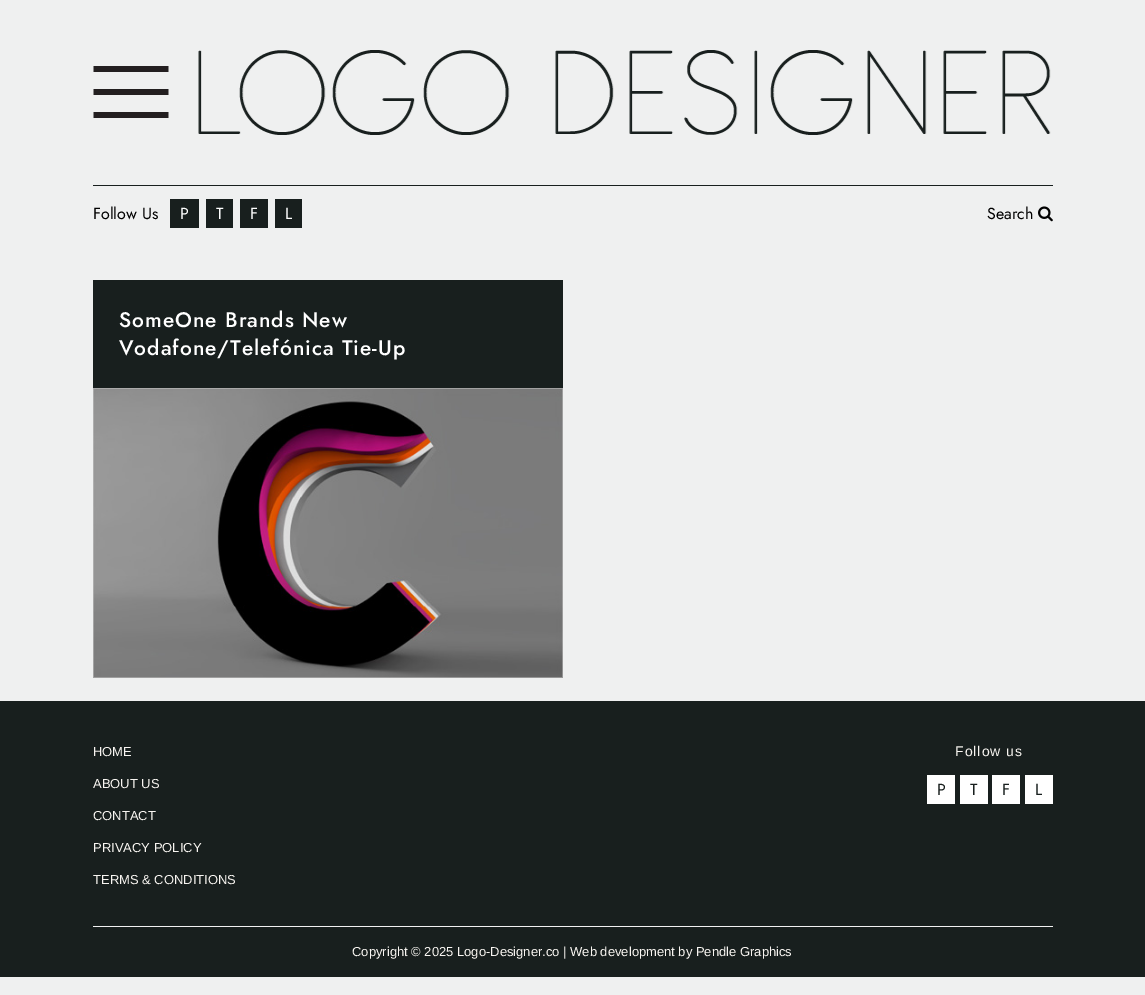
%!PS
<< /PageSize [1145 995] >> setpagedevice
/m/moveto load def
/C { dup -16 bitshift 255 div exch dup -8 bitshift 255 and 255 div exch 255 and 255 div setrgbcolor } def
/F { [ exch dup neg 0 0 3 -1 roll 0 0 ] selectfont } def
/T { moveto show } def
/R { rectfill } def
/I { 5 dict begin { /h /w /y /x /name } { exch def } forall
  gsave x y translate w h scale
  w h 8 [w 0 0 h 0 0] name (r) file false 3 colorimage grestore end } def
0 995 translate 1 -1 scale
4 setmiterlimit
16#EFF0F0 C
0 0 1145 995 R
(1.rgb) 93 66 76 52 I
16#181F1E C
93 185 960 1 R
(2.rgb) 198 50 853 85 I
/Jost-Regular 16 F
16#000000 C
(Follow Us) 93 219 T
16#181F1E C
170 199 29 29 R
16#FFFFFF C
(P) 180 219 T
16#181F1E C
206 199 27 29 R
16#FFFFFF C
(T) 216 219 T
16#181F1E C
240 199 28 29 R
16#FFFFFF C
(F) 250 219 T
16#181F1E C
275 199 27 29 R
16#FFFFFF C
(L) 285 219 T
16#000000 C
(Search) 987 219 T
(3.rgb) 1038 206 15 16 I
16#181F1E C
93 280 470 108 R
/Jost-Medium 21 F
16#FFFFFF C
119 327 m 1 0 (SomeOne Brands New) ashow
119 355 m 1 0 (Vodafone/Telefónica Tie-Up) ashow
(4.rgb) 93 388 470 290 I
16#181F1E C
0 701 1145 276 R
/LiberationSans-Regular 13 F
16#F8F5F1 C
(HOME) 93 756 T
(ABOUT US) 93 788 T
(CONTACT) 93 820 T
(PRIVACY POLICY) 93 852 T
(TERMS & CONDITIONS) 93 884 T
/LiberationSans-Regular 14 F
955 756 m 1 0 (Follow us) ashow
16#FFFFFF C
927 775 28 29 R
/Jost-Regular 16 F
16#181F1E C
(P) 937 795 T
16#FFFFFF C
960 775 28 29 R
16#181F1E C
(T) 970 795 T
16#FFFFFF C
992 775 28 29 R
16#181F1E C
(F) 1002 795 T
16#FFFFFF C
1025 775 28 29 R
16#181F1E C
(L) 1035 795 T
16#F1F1F2 C
93 926 960 1 R
/LiberationSans-Regular 13 F
16#F8F5F1 C
(Copyright © 2025 Logo-Designer.co | Web development by Pendle Graphics) 352 956 T
showpage
